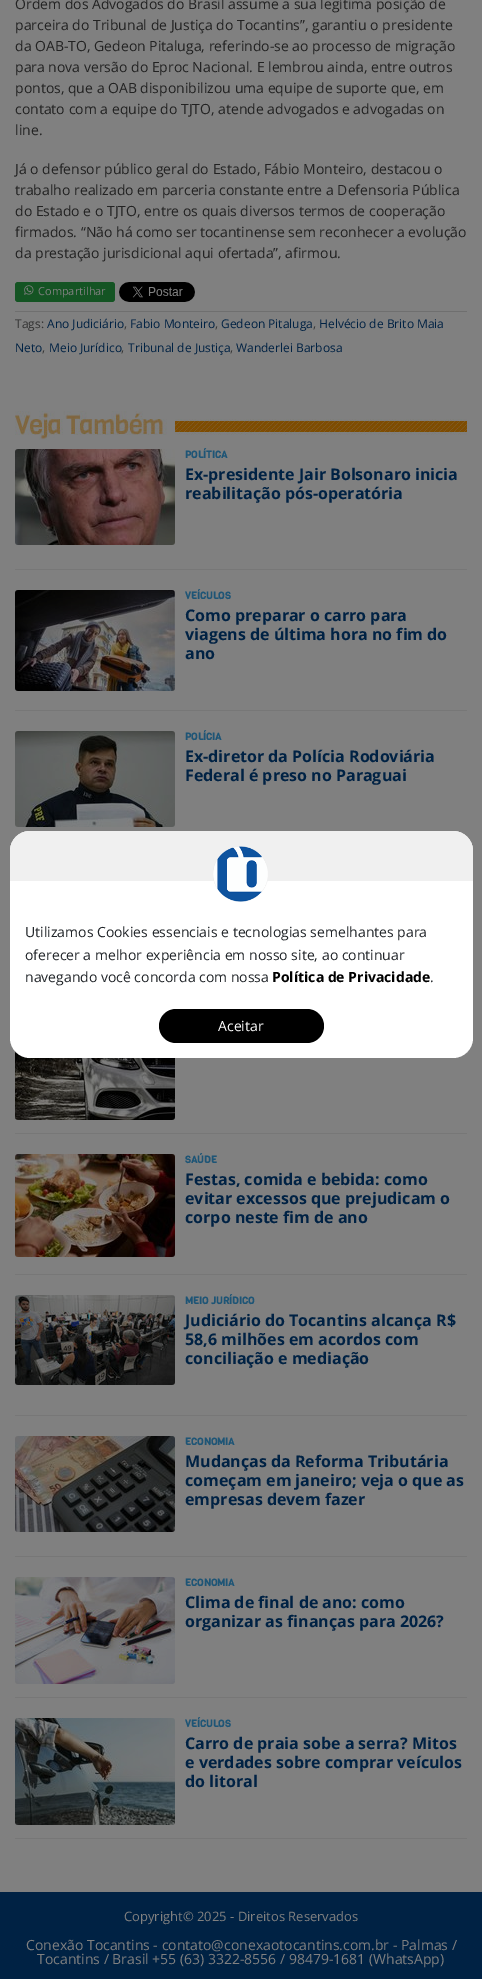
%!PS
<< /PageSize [482 1979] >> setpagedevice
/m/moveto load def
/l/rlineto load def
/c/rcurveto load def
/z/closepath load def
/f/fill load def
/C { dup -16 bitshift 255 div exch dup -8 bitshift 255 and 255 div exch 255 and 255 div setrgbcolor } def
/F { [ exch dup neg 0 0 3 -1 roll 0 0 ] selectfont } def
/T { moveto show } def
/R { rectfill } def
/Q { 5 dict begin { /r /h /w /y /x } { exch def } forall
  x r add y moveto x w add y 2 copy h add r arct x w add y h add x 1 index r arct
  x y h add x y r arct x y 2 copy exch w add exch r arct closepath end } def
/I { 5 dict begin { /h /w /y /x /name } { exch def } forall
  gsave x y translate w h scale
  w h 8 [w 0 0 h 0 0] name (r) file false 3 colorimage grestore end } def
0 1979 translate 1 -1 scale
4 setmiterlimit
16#808080 C
0 0 482 1979 R
/OpenSans-Regular 14 F
16#222222 C
(Ordem dos Advogados do Brasil assume a sua legítima posição de) 15 9 T
(parceira do Tribunal de Justiça do Tocantins”, garantiu o presidente) 15 30 T
(da OAB-TO, Gedeon Pitaluga, referindo-se ao processo de migração) 15 51 T
(para nova versão do Eproc Nacional. E lembrou ainda, entre outros) 15 72 T
(pontos, que a OAB disponibilizou uma equipe de suporte que, em) 15 93 T
(contato com a equipe do TJTO, atende advogados e advogadas on) 15 114 T
(line.) 15 135 T
(Já o defensor público geral do Estado, Fábio Monteiro, destacou o) 15 174 T
(trabalho realizado em parceria constante entre a Defensoria Pública) 15 195 T
(do Estado e o TJTO, entre os quais diversos termos de cooperação) 15 216 T
(firmados. “Não há como ser tocantinense sem reconhecer a evolução) 15 237 T
(da prestação jurisdicional aqui ofertada”, afirmou.) 15 258 T
16#145423 C
15 282 100 20 3 Q f
(1.rgb) 24 285 10 10 I
/OpenSans-Regular 11 F
16#808080 C
(Compartilhar) 38 295 T
(2.rgb) 119 282 76 20 I
16#6F6F6F C
15 311 452 1 R
/OpenSans-Regular 12 F
16#333333 C
(Tags:) 15 328 T
16#002244 C
(Ano Judiciário) 47 328 T
16#333333 C
(,) 124 328 T
16#002244 C
(Fabio Monteiro) 130 328 T
16#333333 C
(,) 215 328 T
16#002244 C
(Gedeon Pitaluga) 221 328 T
16#333333 C
(,) 313 328 T
16#002244 C
(Helvécio de Brito Maia) 319 328 T
(Neto) 15 352 T
16#333333 C
(,) 42 352 T
16#002244 C
(Meio Jurídico) 49 352 T
16#333333 C
(,) 121 352 T
16#002244 C
(Tribunal de Justiça) 128 352 T
16#333333 C
(,) 230 352 T
16#002244 C
(Wanderlei Barbosa) 236 352 T
(3.rgb) 15 411 452 29 I
16#777777 C
15 569 452 1 R
(4.rgb) 15 449 160 96 I
/Viga-Bold 10 F
16#1E5576 C
(POLÍTICA) 185 458 T
/OpenSans-Bold 16 F
16#002244 C
(Ex-presidente Jair Bolsonaro inicia) 185 480 T
(reabilitação pós-operatória) 185 499 T
16#777777 C
15 710 452 1 R
(5.rgb) 15 590 160 101 I
/Viga-Bold 10 F
16#1E5576 C
(VEÍCULOS) 185 599 T
/OpenSans-Bold 16 F
16#002244 C
(Como preparar o carro para) 185 621 T
(viagens de última hora no fim do) 185 640 T
(ano) 185 659 T
(6.rgb) 15 731 160 96 I
/Viga-Bold 10 F
16#1E5576 C
(POLÍCIA) 185 740 T
/OpenSans-Bold 16 F
16#002244 C
(Ex-diretor da Polícia Rodoviária) 185 762 T
(Federal é preso no Paraguai) 185 781 T
16#777777 C
15 1133 452 1 R
(7.rgb) 15 1051 160 69 I
15 1274 452 1 R
(8.rgb) 15 1154 160 103 I
/Viga-Bold 10 F
16#1E5576 C
(SAÚDE) 185 1163 T
/OpenSans-Bold 16 F
16#002244 C
(Festas, comida e bebida: como) 185 1185 T
(evitar excessos que prejudicam o) 185 1204 T
(corpo neste fim de ano) 185 1223 T
16#777777 C
15 1415 452 1 R
(9.rgb) 15 1295 160 90 I
/Viga-Bold 10 F
16#1E5576 C
(MEIO JURÍDICO) 185 1304 T
/OpenSans-Bold 16 F
16#002244 C
(Judiciário do Tocantins alcança R$) 185 1326 T
(58,6 milhões em acordos com) 185 1345 T
(conciliação e mediação) 185 1364 T
16#777777 C
15 1556 452 1 R
(10.rgb) 15 1436 160 96 I
/Viga-Bold 10 F
16#1E5576 C
(ECONOMIA) 185 1445 T
/OpenSans-Bold 16 F
16#002244 C
(Mudanças da Reforma Tributária) 185 1467 T
(começam em janeiro; veja o que as) 185 1486 T
(empresas devem fazer) 185 1505 T
16#777777 C
15 1697 452 1 R
(11.rgb) 15 1577 160 107 I
/Viga-Bold 10 F
16#1E5576 C
(ECONOMIA) 185 1586 T
/OpenSans-Bold 16 F
16#002244 C
(Clima de final de ano: como) 185 1608 T
(organizar as finanças para 2026?) 185 1627 T
16#777777 C
15 1838 452 1 R
(12.rgb) 15 1718 160 107 I
/Viga-Bold 10 F
16#1E5576 C
(VEÍCULOS) 185 1727 T
/OpenSans-Bold 16 F
16#002244 C
(Carro de praia sobe a serra? Mitos) 185 1749 T
(e verdades sobre comprar veículos) 185 1768 T
(do litoral) 185 1787 T
16#FFFFFF C
10 831 463 227 20 Q f
16#F0F0F0 C
30 831 m 423 0 l 11 0 20 9 20 20 c 0 30 l -463 0 l 0 -30 l 0 -11 9 -20 20 -20 c z f
(13.rgb) 213 846 55 56 I
/OpenSans-Regular 14 F
16#212529 C
(Utilizamos Cookies essenciais e tecnologias semelhantes para) 25 937 T
(oferecer a melhor experiência em nosso site, ao continuar) 25 960 T
(navegando você concorda com nossa) 25 982 T
/OpenSans-Bold 14 F
16#000000 C
(Política de Privacidade) 272 982 T
/OpenSans-Regular 14 F
16#212529 C
(.) 430 982 T
16#000000 C
159 1009 165 34 17 Q f
16#FFFFFF C
(Aceitar) 218 1031 T
16#002244 C
0 1892 482 87 R
/OpenSans-Regular 13 F
16#808080 C
(Copyright© 2025 - Direitos Reservados) 124 1921 T
/OpenSans-Regular 14 F
(Conexão Tocantins - contato@conexaotocantins.com.br - Palmas /) 26 1950 T
(Tocantins / Brasil +55 \(63\) 3322-8556 / 98479-1681 \(WhatsApp\)) 37 1964 T
showpage
